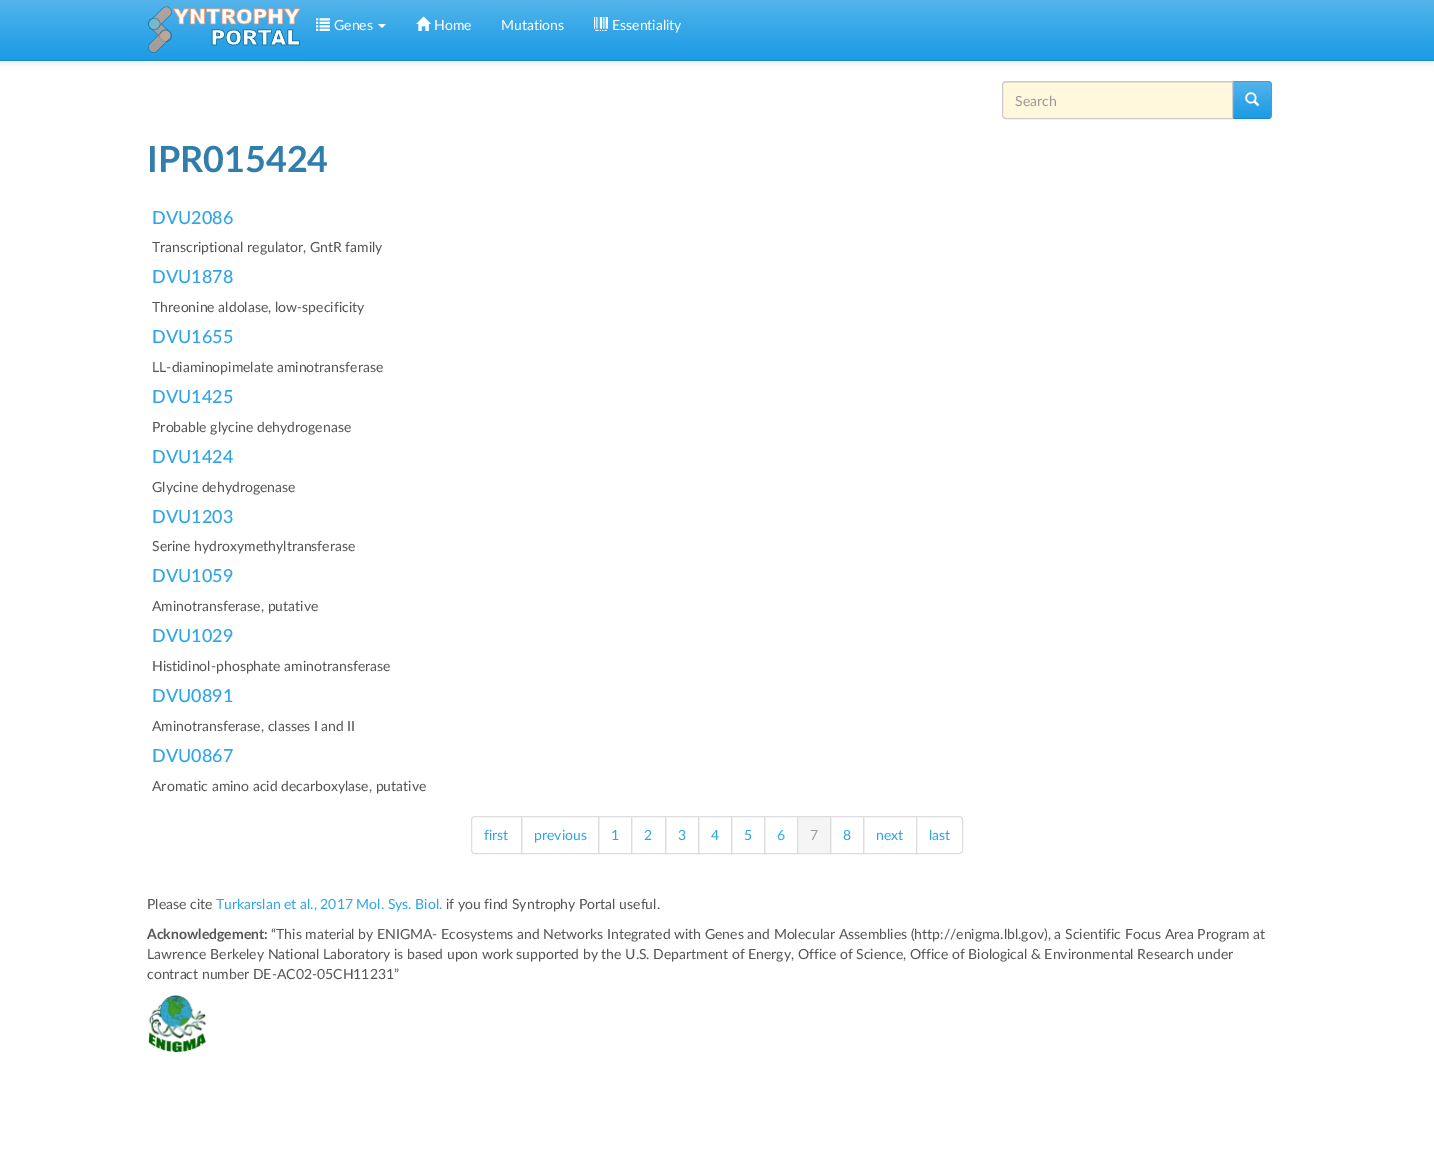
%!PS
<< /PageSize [1434 1167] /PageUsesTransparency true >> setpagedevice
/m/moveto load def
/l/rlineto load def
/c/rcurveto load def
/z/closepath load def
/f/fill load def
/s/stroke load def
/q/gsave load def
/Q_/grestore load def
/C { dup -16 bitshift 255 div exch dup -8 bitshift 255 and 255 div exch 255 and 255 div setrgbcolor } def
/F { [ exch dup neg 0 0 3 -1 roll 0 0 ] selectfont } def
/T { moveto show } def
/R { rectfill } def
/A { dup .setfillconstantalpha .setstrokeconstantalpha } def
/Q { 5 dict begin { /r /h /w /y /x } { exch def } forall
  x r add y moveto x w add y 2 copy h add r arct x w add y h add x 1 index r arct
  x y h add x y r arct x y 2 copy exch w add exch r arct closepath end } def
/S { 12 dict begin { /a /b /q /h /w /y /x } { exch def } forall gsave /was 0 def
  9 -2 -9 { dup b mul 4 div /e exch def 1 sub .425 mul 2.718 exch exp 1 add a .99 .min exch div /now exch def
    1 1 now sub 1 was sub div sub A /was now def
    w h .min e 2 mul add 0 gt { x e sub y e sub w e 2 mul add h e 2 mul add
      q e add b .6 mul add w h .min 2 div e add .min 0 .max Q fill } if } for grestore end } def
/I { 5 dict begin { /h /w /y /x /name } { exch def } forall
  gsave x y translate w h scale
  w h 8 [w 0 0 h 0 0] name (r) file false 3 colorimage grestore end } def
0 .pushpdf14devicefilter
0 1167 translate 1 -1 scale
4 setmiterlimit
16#FFFFFF C
0 0 1434 1167 R
16#000000 C
0 1 1434 61 0 5 .1 S
q 0 0 m 1434 0 l 0 60 l -1434 0 l z clip newpath
<< /ShadingType 2 /ColorSpace /DeviceRGB /Coords [717 0 717 60] /Extend [true true] /Function << /FunctionType 3 /Domain [0 1] /Functions [<< /FunctionType 2 /Domain [0 1] /C0 [.329 .706 .922] /C1 [.184 .643 .906] /N 1 >> << /FunctionType 2 /Domain [0 1] /C0 [.184 .643 .906] /C1 [.114 .612 .898] /N 1 >>] /Bounds [.6] /Encode [0 1 0 1] >> >> shfill Q_
16#178ACC C
0 60 1434 1 R
(1.rgb) 148 6 153 47 I
(2.rgb) 316 18 14 13 I
/Lato-Regular 14 F
16#FFFFFF C
(Genes) 334 30 T
378 24 m 8 0 l -4 4 l z f
(3.rgb) 416 16 15 15 I
(Home) 434 30 T
(Mutations) 501 30 T
(4.rgb) 594 17 14 14 I
(Essentiality) 612 30 T
q 1233 82 m 38 0 l 0 36 l -38 0 l z clip newpath
<< /ShadingType 2 /ColorSpace /DeviceRGB /Coords [1252 82 1252 118] /Extend [true true] /Function << /FunctionType 3 /Domain [0 1] /Functions [<< /FunctionType 2 /Domain [0 1] /C0 [.329 .706 .922] /C1 [.184 .643 .906] /N 1 >> << /FunctionType 2 /Domain [0 1] /C0 [.184 .643 .906] /C1 [.114 .612 .898] /N 1 >>] /Bounds [.6] /Encode [0 1 0 1] >> >> shfill Q_
16#2FA4E7 C
1232 81 m 1 1 l 35 0 l 1 0 2 0 2 1 c 1 -1 l -1 -.5 -2 -1 -3 -1 c z f
1272 115 m 0 -30 l 0 -1 -.5 -2 -1 -3 c -1 1 l 1 0 1 1 1 2 c 0 30 l 0 1 0 2 -1 2 c 1 1 l .5 -1 1 -2 1 -3 c z f
16#178ACC C
1268 119 m 1 0 2 -.5 3 -1 c -1 -1 l 0 1 -1 1 -2 1 c -35 0 l -1 1 l z f
16#FFF8DC C
1006 81 m 227 0 l 0 38 l -227 0 l -2 0 -4 -2 -4 -4 c 0 -30 l 0 -2 2 -4 4 -4 c z f
16#ECE5CC C
1006 83 m 226 0 l 0 -1 l -226 0 l -2 0 -3 2 -3 4 c 0 -2 1 -3 3 -3 c z f
16#CCCCCC C
1006 81.5 m 226.5 0 l 0 37 l -226.5 0 l -2 0 -3.5 -1.5 -3.5 -3.5 c 0 -30 l 0 -2 1.5 -3.5 3.5 -3.5 c z s
16#999999 C
(Search) 1015 106 T
(5.rgb) 1245 92 15 15 I
/Lato-Bold 36 F
16#317EAC C
(IPR015424) 147 172 T
/Lato-Medium 18 F
16#2FA4E7 C
(DVU2086) 152 224 T
/Lato-Regular 14 F
16#555555 C
(Transcriptional regulator, GntR family) 152 252 T
/Lato-Medium 18 F
16#2FA4E7 C
(DVU1878) 152 283 T
/Lato-Regular 14 F
16#555555 C
(Threonine aldolase, low-specificity) 152 312 T
/Lato-Medium 18 F
16#2FA4E7 C
(DVU1655) 152 343 T
/Lato-Regular 14 F
16#555555 C
(LL-diaminopimelate aminotransferase) 152 372 T
/Lato-Medium 18 F
16#2FA4E7 C
(DVU1425) 152 403 T
/Lato-Regular 14 F
16#555555 C
(Probable glycine dehydrogenase) 152 432 T
/Lato-Medium 18 F
16#2FA4E7 C
(DVU1424) 152 463 T
/Lato-Regular 14 F
16#555555 C
(Glycine dehydrogenase) 152 492 T
/Lato-Medium 18 F
16#2FA4E7 C
(DVU1203) 152 523 T
/Lato-Regular 14 F
16#555555 C
(Serine hydroxymethyltransferase) 152 551 T
/Lato-Medium 18 F
16#2FA4E7 C
(DVU1059) 152 582 T
/Lato-Regular 14 F
16#555555 C
(Aminotransferase, putative) 152 611 T
/Lato-Medium 18 F
16#2FA4E7 C
(DVU1029) 152 642 T
/Lato-Regular 14 F
16#555555 C
(Histidinol-phosphate aminotransferase) 152 671 T
/Lato-Medium 18 F
16#2FA4E7 C
(DVU0891) 152 702 T
/Lato-Regular 14 F
16#555555 C
(Aminotransferase, classes I and II) 152 731 T
/Lato-Medium 18 F
16#2FA4E7 C
(DVU0867) 152 762 T
/Lato-Regular 14 F
16#555555 C
(Aromatic amino acid decarboxylase, putative) 152 791 T
16#DDDDDD C
475 816.5 m 46.5 0 l 0 37 l -46.5 0 l -2 0 -3.5 -1.5 -3.5 -3.5 c 0 -30 l 0 -2 1.5 -3.5 3.5 -3.5 c z s
16#2FA4E7 C
(first) 484 840 T
16#DDDDDD C
521.5 816.5 77 37 rectstroke
16#2FA4E7 C
(previous) 534 840 T
16#DDDDDD C
598.5 816.5 33 37 rectstroke
16#2FA4E7 C
(1) 611 840 T
16#DDDDDD C
631.5 816.5 34 37 rectstroke
16#2FA4E7 C
(2) 644 840 T
16#DDDDDD C
665.5 816.5 33 37 rectstroke
16#2FA4E7 C
(3) 678 840 T
16#DDDDDD C
698.5 816.5 33 37 rectstroke
16#2FA4E7 C
(4) 711 840 T
16#DDDDDD C
731.5 816.5 33 37 rectstroke
16#2FA4E7 C
(5) 744 840 T
16#DDDDDD C
764.5 816.5 33 37 rectstroke
16#2FA4E7 C
(6) 777 840 T
16#DDDDDD C
830.5 816.5 33 37 rectstroke
16#F5F5F5 C
797.5 816.5 m 33 0 l 0 37 l -33 0 l z q f Q_
16#DDDDDD C
s
16#999999 C
(7) 810 840 T
16#2FA4E7 C
(8) 843 840 T
16#DDDDDD C
863.5 816.5 53 37 rectstroke
16#2FA4E7 C
(next) 876 840 T
16#FFFFFF C
916.5 816.5 m 42.5 0 l 2 0 3.5 1.5 3.5 3.5 c 0 30 l 0 2 -1.5 3.5 -3.5 3.5 c -42.5 0 l z q f Q_
16#DDDDDD C
s
16#2FA4E7 C
(last) 929 840 T
16#555555 C
(Please cite) 147 909 T
16#2FA4E7 C
(Turkarslan et al., 2017 Mol. Sys. Biol.) 216 909 T
16#555555 C
(if you find Syntrophy Portal useful.) 446 909 T
/Lato-Bold 14 F
(Acknowledgement:) 147 939 T
/Lato-Regular 14 F
(“This material by ENIGMA- Ecosystems and Networks Integrated with Genes and Molecular Assemblies \(http://enigma.lbl.gov\), a Scientific Focus Area Program at) 271 939 T
(Lawrence Berkeley National Laboratory is based upon work supported by the U.S. Department of Energy, Office of Science, Office of Biological & Environmental Research under) 147 959 T
(contract number DE-AC02-05CH11231”) 147 979 T
(6.rgb) 148 995 59 58 I
.poppdf14devicefilter showpage
